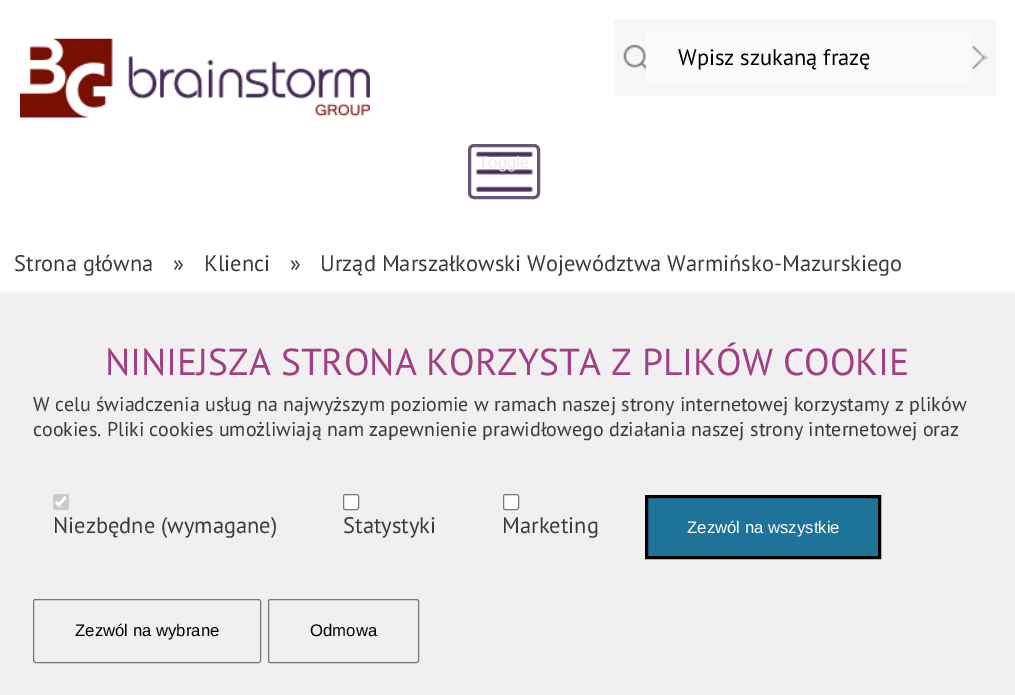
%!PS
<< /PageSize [1015 695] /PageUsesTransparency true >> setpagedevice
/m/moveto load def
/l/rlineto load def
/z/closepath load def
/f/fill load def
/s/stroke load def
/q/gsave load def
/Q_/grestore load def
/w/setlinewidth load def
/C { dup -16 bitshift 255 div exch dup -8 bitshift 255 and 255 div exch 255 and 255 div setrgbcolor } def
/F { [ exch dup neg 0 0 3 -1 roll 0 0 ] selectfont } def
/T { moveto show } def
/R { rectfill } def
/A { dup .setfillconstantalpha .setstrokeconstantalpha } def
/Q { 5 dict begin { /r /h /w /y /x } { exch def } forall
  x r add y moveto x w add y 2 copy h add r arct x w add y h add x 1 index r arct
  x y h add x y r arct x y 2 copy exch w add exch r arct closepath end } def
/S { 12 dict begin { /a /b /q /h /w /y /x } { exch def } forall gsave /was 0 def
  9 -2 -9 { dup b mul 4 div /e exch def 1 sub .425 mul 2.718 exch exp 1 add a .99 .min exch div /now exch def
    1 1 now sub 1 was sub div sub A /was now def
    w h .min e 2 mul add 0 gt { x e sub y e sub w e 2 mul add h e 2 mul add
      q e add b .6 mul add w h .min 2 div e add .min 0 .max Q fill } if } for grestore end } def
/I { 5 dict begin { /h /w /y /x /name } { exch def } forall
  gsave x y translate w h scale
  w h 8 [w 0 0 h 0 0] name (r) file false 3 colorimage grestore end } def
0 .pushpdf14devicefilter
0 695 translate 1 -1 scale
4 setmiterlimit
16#FFFFFF C
0 0 1015 695 R
(1.rgb) 20 38 350 80 I
16#F7F7F7 C
614 19 382 77 R
(2.rgb) 623 45 23 25 I
16#FBFBFB C
646 33 325 50 R
/PTSans-Regular 22.5 F
16#000000 C
(Wpisz szukaną frazę) 678 65 T
(3.rgb) 972 46 13 23 I
/LiberationSans-Regular 16.75 F
16#CBCBCB C
(>) 979 63 T
(4.rgb) 476 151 57 41 I
16#6A5578 C
3 w
469.5 145.5 69 52 4.5 Q s
16#ECE9EE C
(Toggle) 478 168 T
/PTSans-Regular 22.5 F
16#3B3B3B C
(Strona główna) 14 271 T
(») 173 271 T
(Klienci) 204 271 T
(») 290 271 T
(Urząd Marszałkowski Województwa Warmińsko-Mazurskiego) 320 271 T
16#000000 C
0 294 1015 399 0 3 .1 S
16#F0F0F0 C
0 296 1015 399 R
/PTSans-Regular 37.5 F
16#A33D84 C
(NINIEJSZA STRONA KORZYSTA Z PLIKÓW COOKIE) 105 375 T
/PTSans-Regular 20 F
16#3B3B3B C
(W celu świadczenia usług na najwyższym poziomie w ramach naszej strony internetowej korzystamy z plików) 33 411 T
(cookies. Pliki cookies umożliwiają nam zapewnienie prawidłowego działania naszej strony internetowej oraz) 33 436 T
16#CBCBCB C
53 494 16 16 2.5 Q f
16#FFFFFF C
2.6 w
56 502 m 3 3 l 6.5 -8 l s
/PTSans-Regular 22.5 F
16#3B3B3B C
(Niezbędne \(wymagane\)) 53 533 T
16#FFFFFF C
343.5 494.5 15 15 2 Q q f Q_
16#767676 C
1 w
s
16#3B3B3B C
(Statystyki) 343 533 T
16#FFFFFF C
503.5 494.5 15 15 2 Q q f Q_
16#767676 C
s
16#3B3B3B C
(Marketing) 502 533 T
16#1E7399 C
646.5 496.5 m 233 0 l 0 61 l -233 0 l z q f Q_
16#000000 C
3 w
s
/LiberationSans-Regular 16.75 F
16#FFFFFF C
(Zezwól na wszystkie) 687 533 T
16#767676 C
1 w
33.5 599.5 227 63 2 Q s
16#000000 C
(Zezwól na wybrane) 75 636 T
16#767676 C
268.5 599.5 150 63 2 Q s
16#000000 C
(Odmowa) 310 636 T
.poppdf14devicefilter showpage
